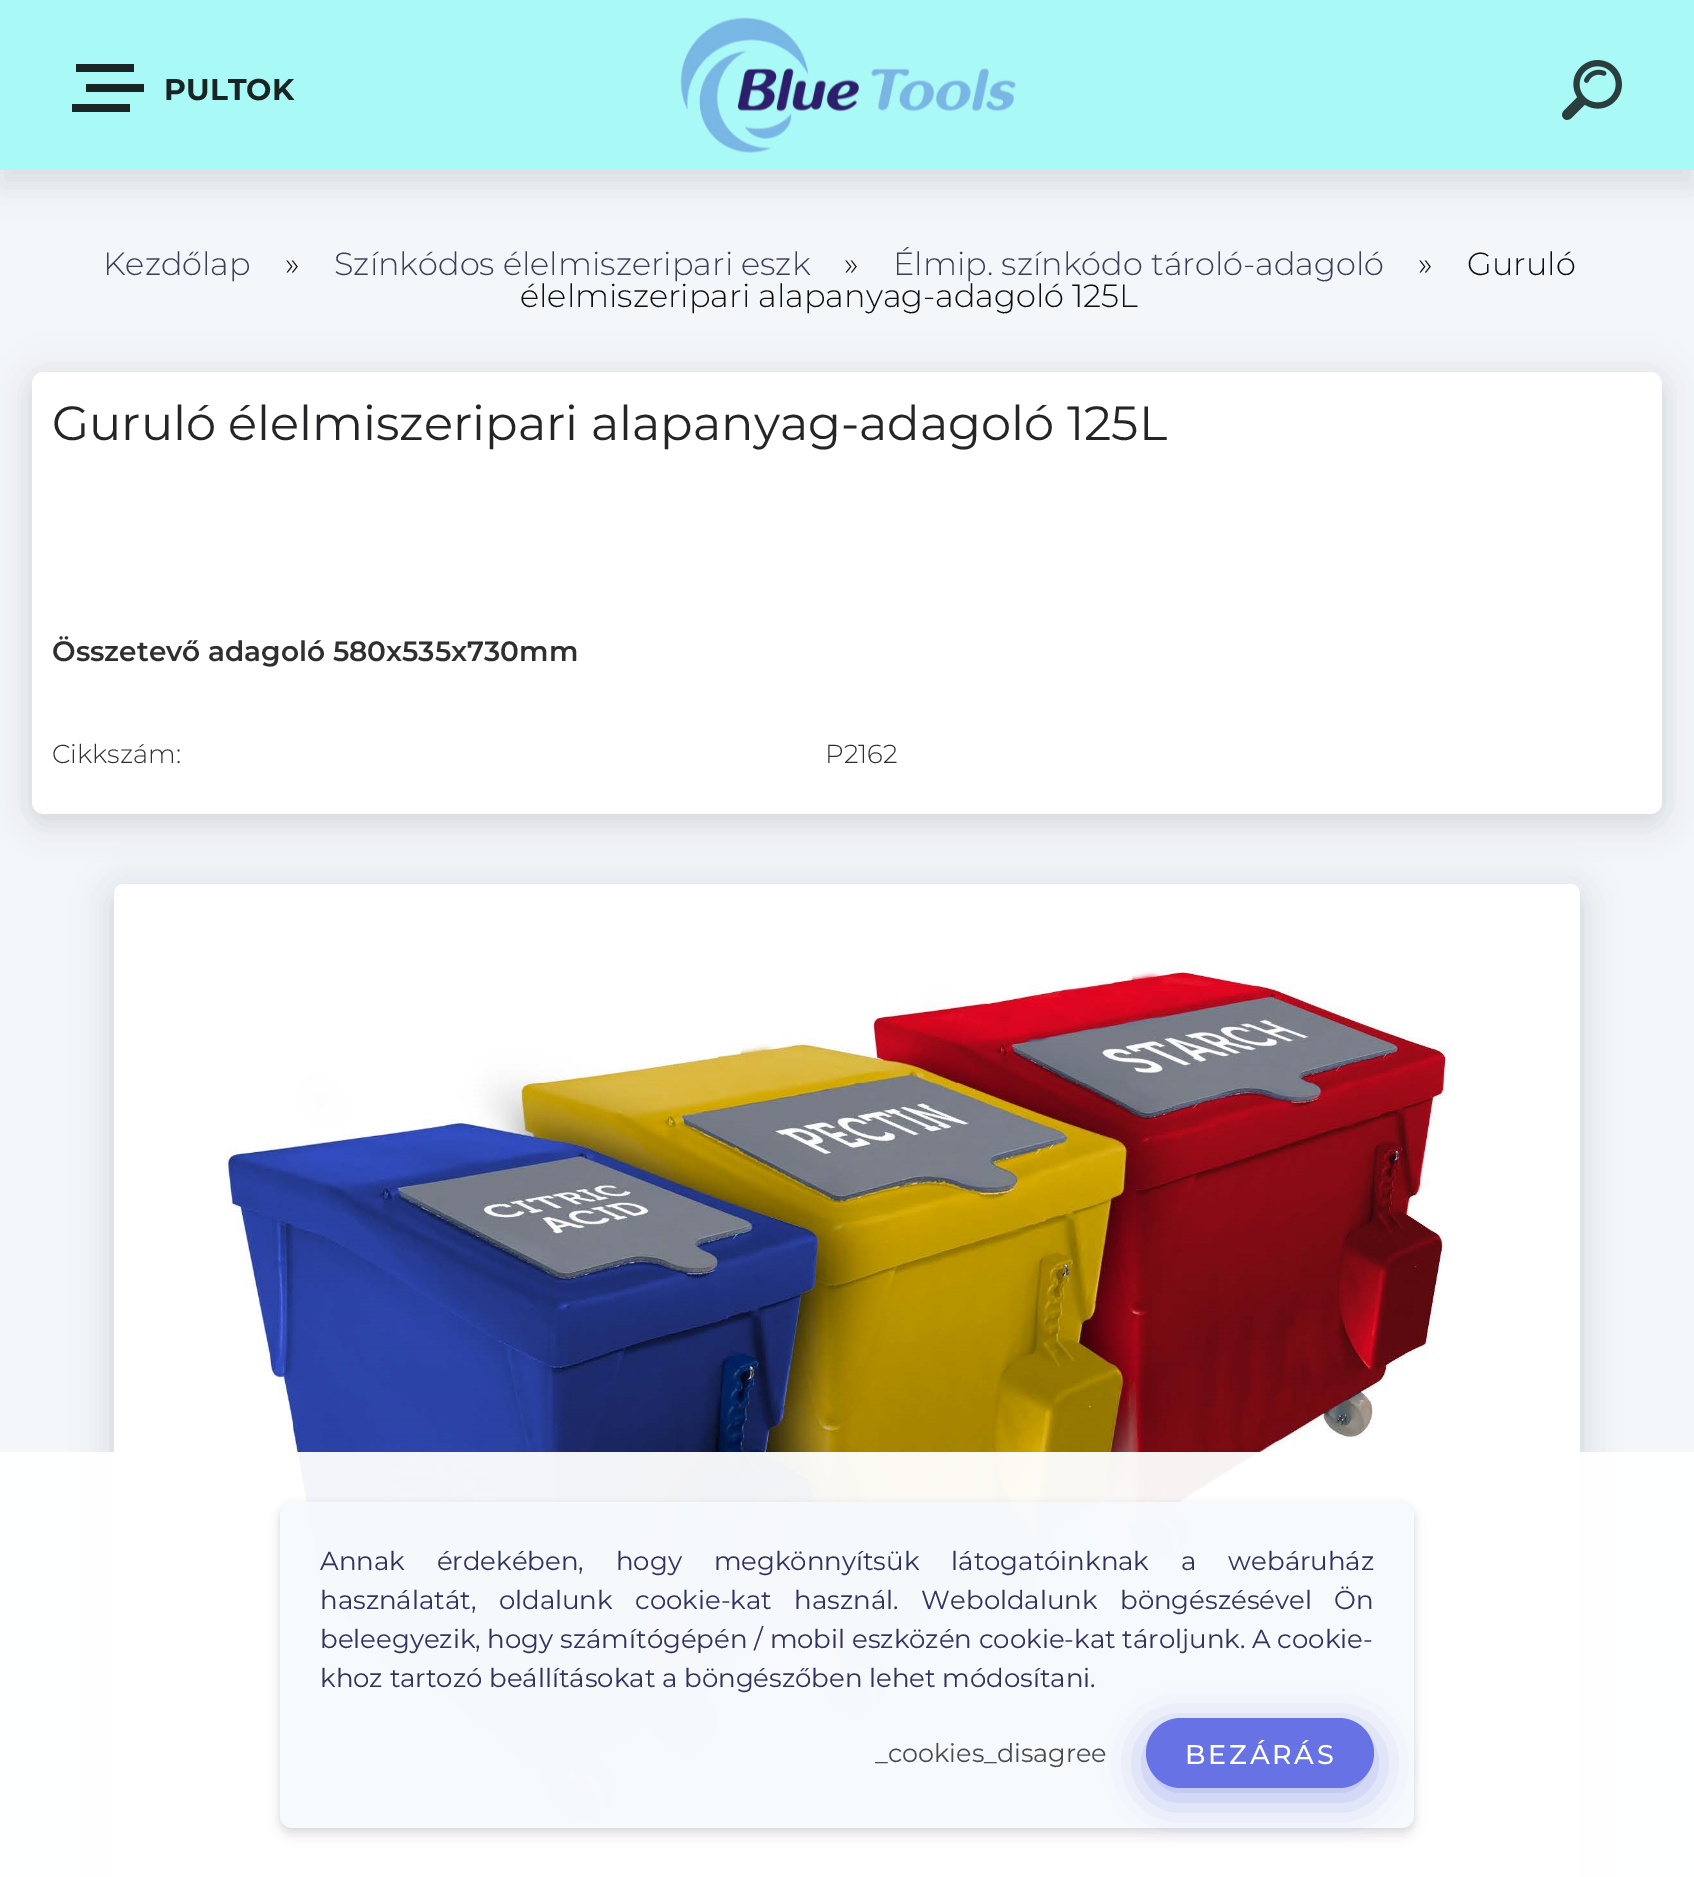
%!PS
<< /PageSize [1694 1877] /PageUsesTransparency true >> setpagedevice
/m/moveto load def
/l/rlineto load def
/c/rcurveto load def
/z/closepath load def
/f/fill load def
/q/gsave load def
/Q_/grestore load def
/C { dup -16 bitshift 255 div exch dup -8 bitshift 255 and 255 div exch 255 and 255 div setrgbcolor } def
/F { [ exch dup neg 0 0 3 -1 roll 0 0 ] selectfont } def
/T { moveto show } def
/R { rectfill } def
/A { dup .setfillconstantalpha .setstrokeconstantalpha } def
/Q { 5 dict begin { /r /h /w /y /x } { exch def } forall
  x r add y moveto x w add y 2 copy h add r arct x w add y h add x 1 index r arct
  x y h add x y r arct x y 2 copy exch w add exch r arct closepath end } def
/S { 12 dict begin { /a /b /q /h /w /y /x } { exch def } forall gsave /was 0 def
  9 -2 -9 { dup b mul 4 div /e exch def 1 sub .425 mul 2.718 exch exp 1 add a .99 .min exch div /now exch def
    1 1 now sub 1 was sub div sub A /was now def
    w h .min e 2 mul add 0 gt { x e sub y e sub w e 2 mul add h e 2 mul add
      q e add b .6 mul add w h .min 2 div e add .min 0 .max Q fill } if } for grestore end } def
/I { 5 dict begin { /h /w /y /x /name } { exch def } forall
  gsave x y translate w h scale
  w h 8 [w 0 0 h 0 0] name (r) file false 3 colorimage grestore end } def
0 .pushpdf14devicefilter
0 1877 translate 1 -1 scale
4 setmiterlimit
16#F4F7F9 C
0 0 1694 1877 R
16#000000 C
0 16 1694 170 0 16 .1 S
16#A9F9F6 C
0 0 1694 170 R
16#192525 C
76 64 58 8 R
86 84 58 8 R
72 104 58 8 R
/Montserrat-Bold 30 F
(PULTOK) 164 100 T
(1.rgb) 680 17 336 136 I
(2.rgb) 1562 60 60 60 I
/Montserrat-Light 32 F
16#3F3D59 C
(Kezdőlap) 103 275 T
16#101010 C
(») 285 275 T
16#3F3D59 C
(Színkódos élelmiszeripari eszk) 334 275 T
16#101010 C
(») 844 275 T
16#3F3D59 C
(Élmip. színkódo tároló-adagoló) 893 275 T
16#101010 C
(») 1418 275 T
(Guruló) 1467 275 T
(élelmiszeripari alapanyag-adagoló 125L) 520 307 T
16#000000 C
32 382 1630 442 12 15 .07 S
16#32325D C
32 376 1630 442 12 20 .1 S
16#FFFFFF C
32 372 1630 442 12 Q f
/Montserrat-Regular 48 F
16#252527 C
(Guruló élelmiszeripari alapanyag-adagoló 125L) 52 440 T
/Montserrat-SemiBold 28 F
16#2F2F2F C
(Összetevő adagoló 580x535x730mm) 52 661 T
/Montserrat-Light 26 F
(Cikkszám:) 52 763 T
(P2162) 825 763 T
16#32325D C
114 888 1466 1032 10 20 .1 S
16#000000 C
114 894 1466 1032 10 15 .07 S
16#FFFFFF C
114 884 1466 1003 10 Q f
(3.rgb) 226 965 1224 859 I
0.95 A
0 1452 1694 425 R
q
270 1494 m 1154 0 l 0 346 l -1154 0 l z 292 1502 m 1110 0 l 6.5 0 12 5.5 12 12 c 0 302 l 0 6.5 -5.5 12 -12 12 c -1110 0 l -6.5 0 -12 -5.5 -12 -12 c 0 -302 l 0 -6.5 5.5 -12 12 -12 c z eoclip newpath
1 A
16#000000 C
280 1504 1134 326 12 3 .08 S
Q_
q
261 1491 m 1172 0 l 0 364 l -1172 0 l z 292 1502 m 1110 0 l 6.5 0 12 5.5 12 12 c 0 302 l 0 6.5 -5.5 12 -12 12 c -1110 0 l -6.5 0 -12 -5.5 -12 -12 c 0 -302 l 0 -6.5 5.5 -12 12 -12 c z eoclip newpath
1 A
16#32325D C
280 1510 1134 326 12 6 .11 S
Q_
0.9 A
16#F6F9FC C
280 1502 1134 326 12 Q f
/Montserrat-Regular 26 F
1 A
16#32325D C
320 1570 m 25.25 0 32 (Annak érdekében, hogy megkönnyítsük látogatóinknak a webáruház) widthshow
320 1609 m 15.75 0 32 (használatát, oldalunk cookie-kat használ. Weboldalunk böngészésével Ön) widthshow
(beleegyezik, hogy számítógépén / mobil eszközén cookie-kat tároljunk. A cookie-) 320 1648 T
(khoz tartozó beállításokat a böngészőben lehet módosítani.) 320 1687 T
16#3A54D6 C
1146 1728 228 70 35 20 .4 S
/Montserrat-Regular 25.5 F
16#4A4B4C C
(_cookies_disagree) 875 1762 T
16#6772E5 C
1146 1718 228 70 35 Q f
/Montserrat-Medium 27 F
16#FFFFFF C
1185 1764 m 2.75 0 (BEZÁRÁS) ashow
.poppdf14devicefilter showpage
